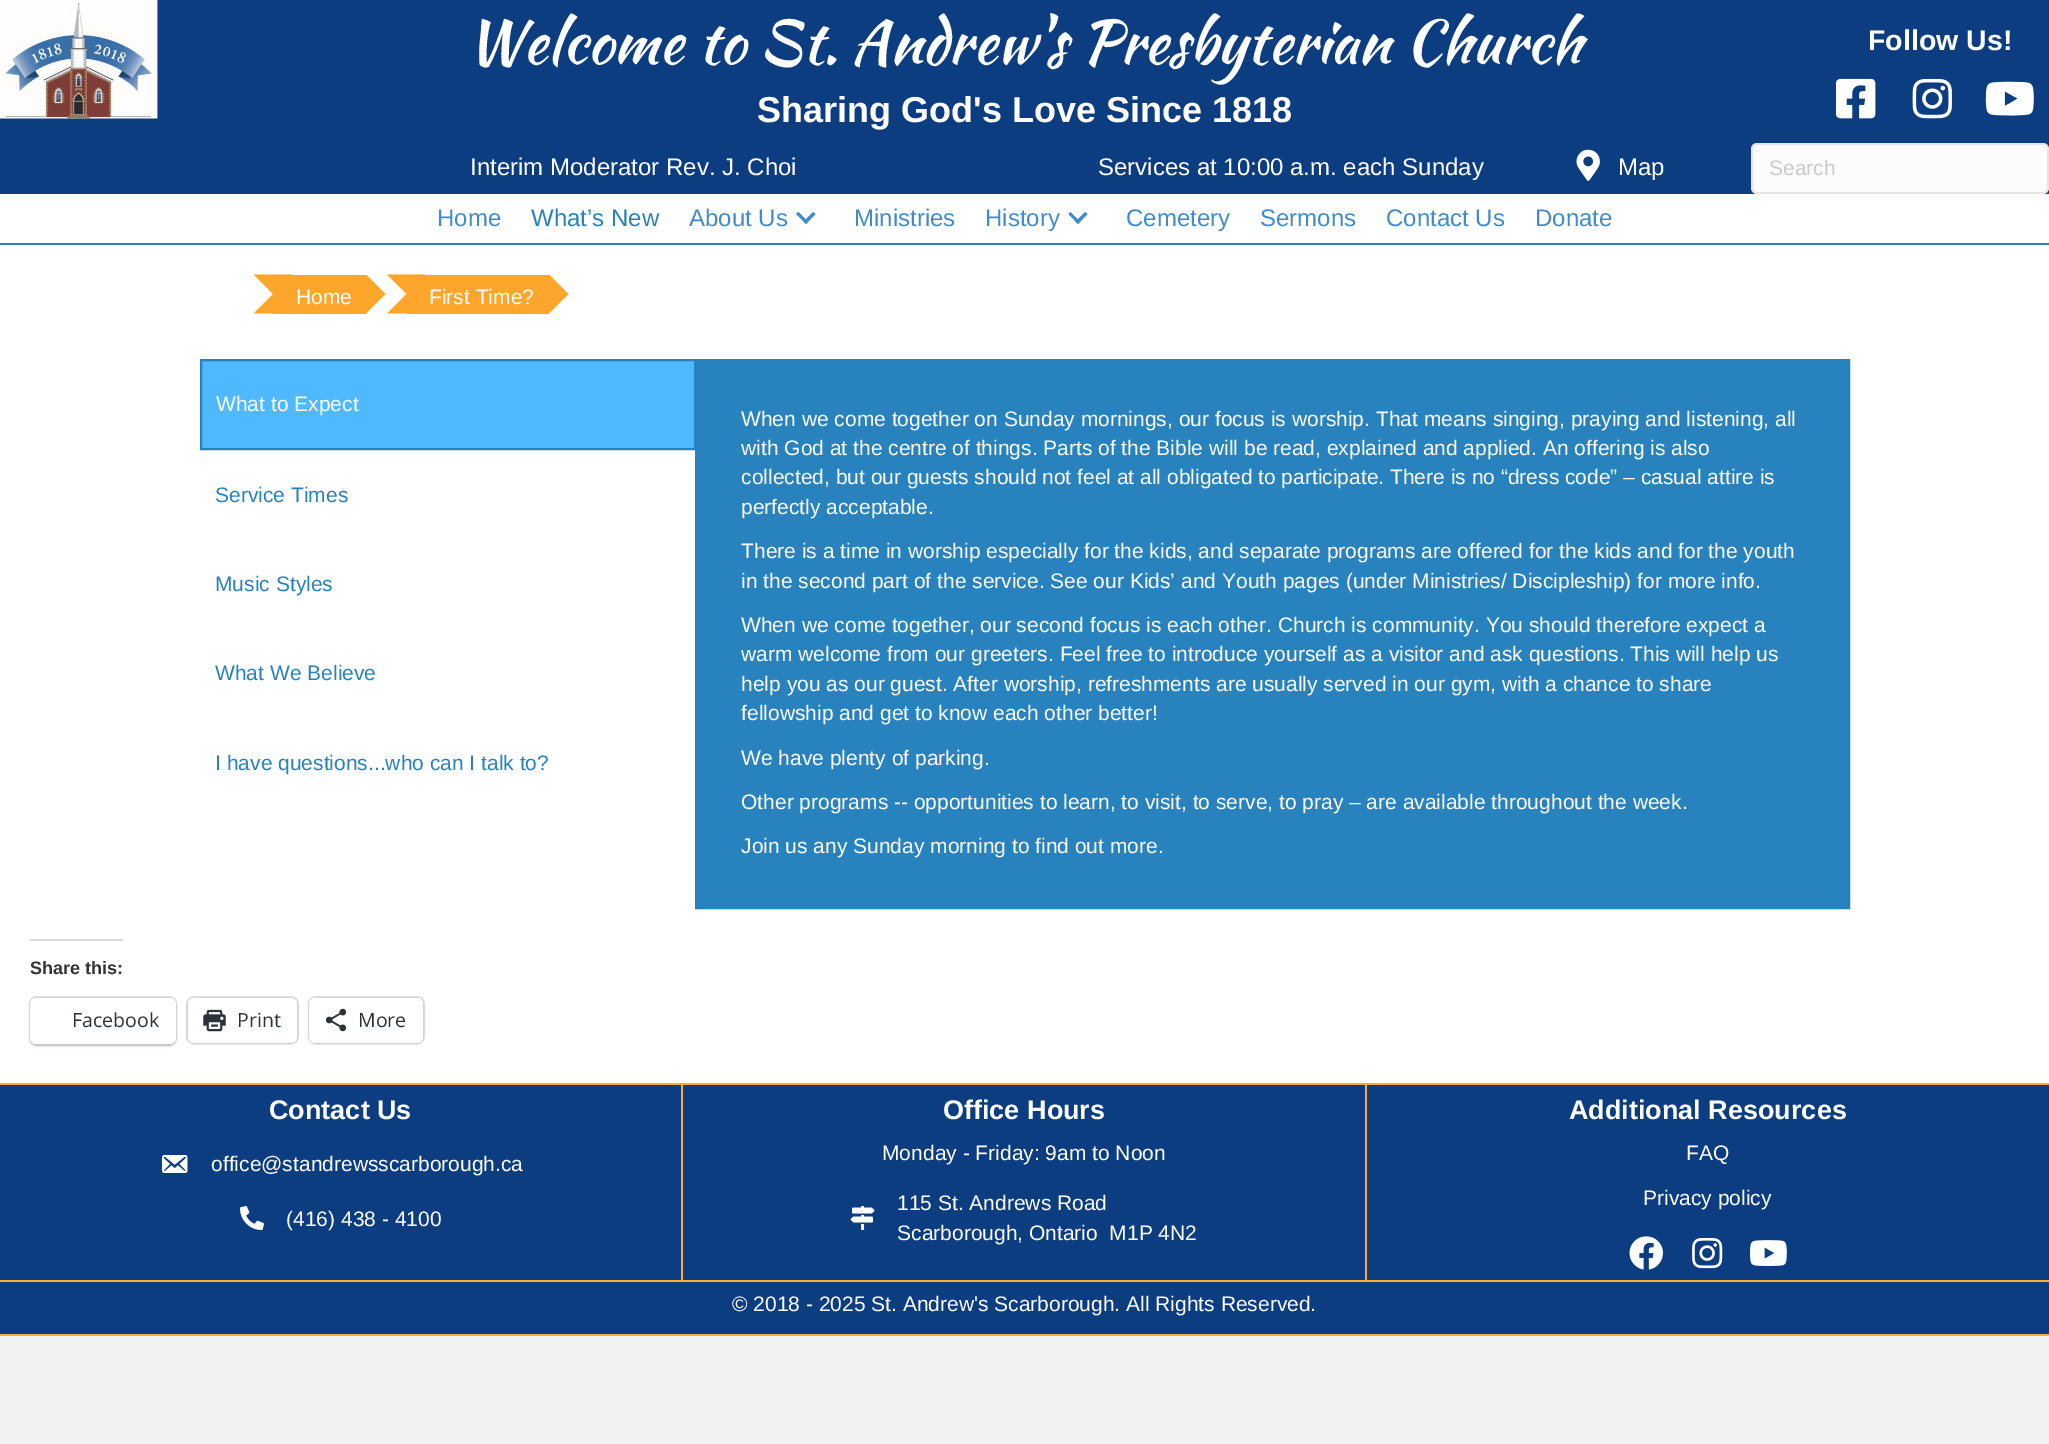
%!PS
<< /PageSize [2049 1444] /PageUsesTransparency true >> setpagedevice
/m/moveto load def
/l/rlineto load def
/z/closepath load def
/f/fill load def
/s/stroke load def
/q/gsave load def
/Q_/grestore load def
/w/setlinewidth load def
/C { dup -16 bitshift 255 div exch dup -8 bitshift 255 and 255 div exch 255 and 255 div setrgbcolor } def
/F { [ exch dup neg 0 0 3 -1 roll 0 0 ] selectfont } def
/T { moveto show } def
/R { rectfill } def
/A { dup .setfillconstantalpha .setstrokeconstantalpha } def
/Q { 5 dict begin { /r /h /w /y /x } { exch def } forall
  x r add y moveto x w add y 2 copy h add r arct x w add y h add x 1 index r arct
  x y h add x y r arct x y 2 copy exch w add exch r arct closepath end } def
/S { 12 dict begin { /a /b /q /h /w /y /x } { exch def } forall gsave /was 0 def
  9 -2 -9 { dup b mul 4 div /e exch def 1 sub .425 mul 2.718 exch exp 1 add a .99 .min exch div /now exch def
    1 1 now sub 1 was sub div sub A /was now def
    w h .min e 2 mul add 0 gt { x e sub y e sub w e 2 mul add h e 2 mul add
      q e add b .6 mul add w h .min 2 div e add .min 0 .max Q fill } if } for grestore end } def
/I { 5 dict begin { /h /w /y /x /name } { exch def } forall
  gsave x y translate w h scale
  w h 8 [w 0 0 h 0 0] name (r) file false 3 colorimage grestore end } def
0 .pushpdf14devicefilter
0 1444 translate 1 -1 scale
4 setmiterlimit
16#F2F2F2 C
0 0 2049 1444 R
16#0C3D81 C
0 0 2049 194 R
(1.rgb) 0 0 158 119 I
/KaushanScript-Regular 60 F
16#FFFFFF C
(Welcome to St. Andrew's Presbyterian Church) 466 63 T
/LiberationSans-Bold 36 F
(Sharing God's Love Since 1818) 757 122 T
/LiberationSans-Bold 28.5 F
(Follow Us!) 1868 50 T
(2.rgb) 1836 78 40 41 I
(3.rgb) 1912 78 40 41 I
(4.rgb) 1985 81 49 35 I
/LiberationSans-Regular 24 F
(Interim Moderator Rev. J. Choi) 470 175 T
(Services at 10:00 a.m. each Sunday) 1098 175 T
(5.rgb) 1576 149 24 32 I
(Map) 1618 175 T
16#FCFCFC C
1752 144 296 49 5 Q q f Q_
16#E6E6E6 C
2 w
s
/LiberationSans-Regular 21 F
16#CACACA C
(Search) 1769 175 T
16#FFFFFF C
0 194 2049 49 R
16#2782BE C
0 243 2049 2 R
/LiberationSans-Regular 24 F
16#428BCA C
(Home) 437 226 T
16#2782BE C
(What’s New) 531 226 T
16#428BCA C
(About Us) 689 226 T
813 212 m 2.5 2 l -9.5 10 l -2.5 -2.5 l z f
798.5 212 m 9.5 9.5 l -2 2.5 l -10 -10 l z f
(Ministries) 854 226 T
(History) 985 226 T
1085 212 m 2.5 2 l -9.5 10 l -2.5 -2.5 l z f
1070.5 212 m 9.5 9.5 l -2 2.5 l -9.5 -10 l z f
(Cemetery) 1126 226 T
(Sermons) 1260 226 T
(Contact Us) 1386 226 T
(Donate) 1535 226 T
16#FFFFFF C
0 245 2049 838 R
16#FEA62B C
293 275 73 39 R
253.5 274.5 m 39 0 l -19.5 19.5 l z f
273 275 20 39 R
292.5 313.5 m -39 0 l 19.5 -19.5 l z f
/LiberationSans-Regular 21 F
16#FFFFFF C
(Home) 296 304 T
16#FEA62B C
366 313.5 m 0 -39 l 19.5 19.5 l z f
426 275 123 39 R
387 274.5 m 39 0 l -19.5 19.5 l z f
407 275 19 39 R
426 313.5 m -39 0 l 19.5 -19.5 l z f
16#FFFFFF C
(First Time?) 429 304 T
16#FEA62B C
549 313.5 m 0 -39 l 19.5 19.5 l z f
16#2782BE C
696 360 1153 548 rectstroke
16#4EB9FF C
201 360 m 494 0 l 0 89 l -494 0 l z q f Q_
16#2782BE C
s
16#FFFFFF C
(What to Expect) 216 411 T
16#2782BE C
(Service Times) 215 502 T
(Music Styles) 215 591 T
(What We Believe) 215 680 T
(I have questions...who can I talk to?) 215 770 T
697 361 1151 546 R
16#FFFFFF C
(When we come together on Sunday mornings, our focus is worship. That means singing, praying and listening, all) 741 426 T
(with God at the centre of things. Parts of the Bible will be read, explained and applied. An offering is also) 741 455 T
(collected, but our guests should not feel at all obligated to participate. There is no “dress code” – casual attire is) 741 484 T
(perfectly acceptable.) 741 514 T
(There is a time in worship especially for the kids, and separate programs are offered for the kids and for the youth) 741 558 T
(in the second part of the service. See our Kids’ and Youth pages \(under Ministries/ Discipleship\) for more info.) 741 588 T
(When we come together, our second focus is each other. Church is community. You should therefore expect a) 741 632 T
(warm welcome from our greeters. Feel free to introduce yourself as a visitor and ask questions. This will help us) 741 661 T
(help you as our guest. After worship, refreshments are usually served in our gym, with a chance to share) 741 691 T
(fellowship and get to know each other better!) 741 720 T
(We have plenty of parking.) 741 765 T
(Other programs -- opportunities to learn, to visit, to serve, to pray – are available throughout the week.) 741 809 T
(Join us any Sunday morning to find out more.) 741 853 T
16#DCDCDE C
30 939 93 2 R
/LiberationSans-Bold 18 F
16#333333 C
(Share this:) 30 974 T
16#E0E0E0 C
30 997 146 48 7 Q s
16#000000 C
30 999 146 47 6 1.5 .12 S
16#FFFFFF C
30 998 146 46 6 Q f
/OpenSans-Regular 19.5 F
16#2C3338 C
(Facebook) 72 1027 T
16#E0E0E0 C
187 997 111 46 7 Q s
16#000000 C
188 999 109 45 6 1.5 .12 S
16#FFFFFF C
188 998 109 45 6 Q f
(6.rgb) 203 1009 23 23 I
16#2C3338 C
(Print) 237 1027 T
16#E0E0E0 C
309 997 115 46 7 Q s
16#000000 C
309 999 114 45 6 1.5 .12 S
16#FFFFFF C
309 998 114 45 6 Q f
(7.rgb) 325 1008 22 24 I
16#2C3338 C
(More) 358 1027 T
16#0C3D81 C
0 1085 2049 195 R
16#FFAB34 C
0 1083 2049 2 R
681 1083 2 197 R
/LiberationSans-Bold 27 F
16#FFFFFF C
(Contact Us) 269 1119 T
(8.rgb) 162 1155 26 18 I
/LiberationSans-Regular 21 F
(office@standrewsscarborough.ca) 211 1171 T
(9.rgb) 240 1206 24 24 I
(\(416\) 438 - 4100) 286 1226 T
16#FFAB34 C
1365 1083 2 197 R
/LiberationSans-Bold 27 F
16#FFFFFF C
(Office Hours) 943 1119 T
/LiberationSans-Regular 21 F
(Monday - Friday: 9am to Noon) 882 1160 T
(10.rgb) 850 1206 25 24 I
(115 St. Andrews Road) 897 1210 T
(Scarborough, Ontario  M1P 4N2) 897 1240 T
/LiberationSans-Bold 27 F
(Additional Resources) 1569 1119 T
/LiberationSans-Regular 21 F
(FAQ) 1686 1160 T
(Privacy policy) 1643 1205 T
(11.rgb) 1629 1236 34 34 I
(12.rgb) 1692 1238 31 31 I
(13.rgb) 1750 1240 37 26 I
16#0C3D81 C
0 1282 2049 52 R
16#FFAB34 C
0 1280 2049 2 R
0 1334 2049 2 R
16#FFFFFF C
(© 2018 - 2025 St. Andrew's Scarborough. All Rights Reserved.) 732 1311 T
.poppdf14devicefilter showpage
